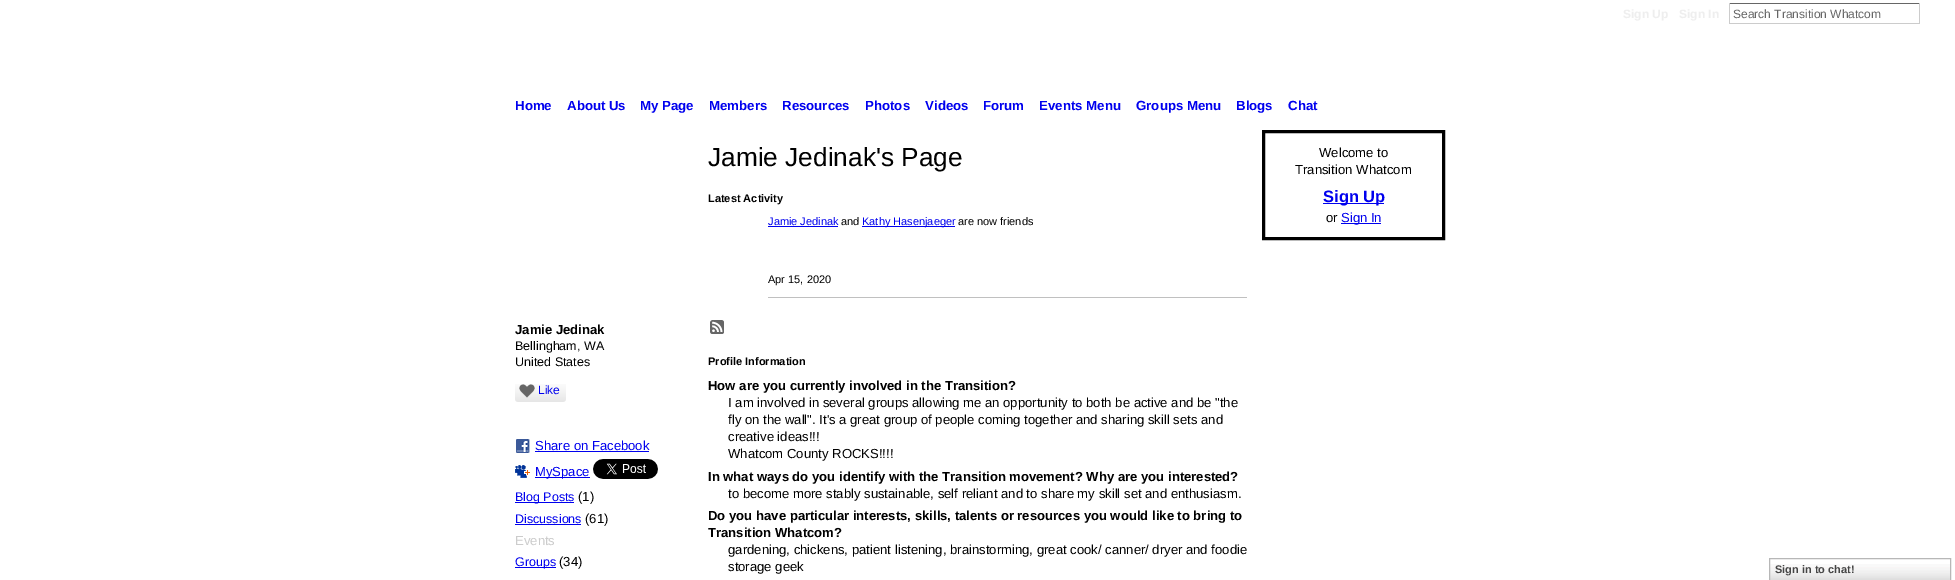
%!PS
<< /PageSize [1955 580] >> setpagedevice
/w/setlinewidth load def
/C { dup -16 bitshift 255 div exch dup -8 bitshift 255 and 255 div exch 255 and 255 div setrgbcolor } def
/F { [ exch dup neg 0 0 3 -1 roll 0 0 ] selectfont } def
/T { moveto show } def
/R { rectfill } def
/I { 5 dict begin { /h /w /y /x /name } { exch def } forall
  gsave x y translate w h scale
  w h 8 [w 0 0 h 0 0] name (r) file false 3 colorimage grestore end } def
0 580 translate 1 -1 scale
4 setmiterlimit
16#FFFFFF C
0 0 1955 580 R
/LiberationSans-Bold 12 F
16#EEEEEE C
(Sign Up) 1623 18 T
(Sign In) 1679 18 T
16#666666 C
1729 3 191 1 R
16#CCCCCC C
1919 3 1 21 R
1729 23 191 1 R
1729 3 1 21 R
/LiberationSans-Regular 12 F
16#666666 C
(Search Transition Whatcom) 1733 18 T
/LiberationSans-Bold 13.25 F
16#0000EE C
(Home) 515 110 T
(About Us) 567 110 T
(My Page) 640 110 T
(Members) 709 110 T
(Resources) 782 110 T
(Photos) 865 110 T
(Videos) 925 110 T
(Forum) 983 110 T
(Events Menu) 1039 110 T
(Groups Menu) 1136 110 T
(Blogs) 1236 110 T
(Chat) 1288 110 T
/LiberationSans-Bold 13.1 F
16#000000 C
(Jamie Jedinak) 515 334 T
/LiberationSans-Regular 12.5 F
(Bellingham, WA) 515 350 T
(United States) 515 366 T
(1.rgb) 515 384 51 18 I
(2.rgb) 519 384 16 14 I
/LiberationSans-Regular 12 F
16#0000EE C
(Like) 538 394 T
(3.rgb) 516 439 14 14 I
/LiberationSans-Regular 13.1 F
(Share on Facebook) 535 450 T
535 451 114 1 R
(4.rgb) 515 465 15 13 I
535 477 55 1 R
(MySpace) 535 476 T
(5.rgb) 593 459 65 20 I
515 502 59 1 R
/LiberationSans-Regular 12.5 F
(Blog Posts) 515 501 T
/LiberationSans-Regular 13.1 F
16#000000 C
(\(1\)) 578 501 T
/LiberationSans-Regular 12.5 F
16#0000EE C
(Discussions) 515 523 T
515 524 66 1 R
/LiberationSans-Regular 13.1 F
16#000000 C
(\(61\)) 585 523 T
16#CCCCCC C
(Events) 515 545 T
16#0000EE C
515 567 41 1 R
/LiberationSans-Regular 12.5 F
(Groups) 515 566 T
/LiberationSans-Regular 13.1 F
16#000000 C
(\(34\)) 559 566 T
/LiberationSans-Regular 26.25 F
(Jamie Jedinak's Page) 708 166 T
/LiberationSans-Bold 11 F
(Latest Activity) 708 202 T
16#C0C0C0 C
768 297 479 1 R
/LiberationSans-Regular 11 F
16#0000EE C
(Jamie Jedinak) 768 225 T
768 226 70 1 R
16#000000 C
(and) 841 225 T
16#0000EE C
862 226 93 1 R
(Kathy Hasenjaeger) 862 225 T
16#000000 C
(are now friends) 958 225 T
(Apr 15, 2020) 768 283 T
(6.rgb) 710 320 14 14 I
/LiberationSans-Bold 11 F
(Profile Information) 708 365 T
/LiberationSans-Bold 13.1 F
(How are you currently involved in the Transition?) 708 390 T
/LiberationSans-Regular 13.1 F
(I am involved in several groups allowing me an opportunity to both be active and be "the) 728 407 T
(fly on the wall". It's a great group of people coming together and sharing skill sets and) 728 424 T
(creative ideas!!!) 728 441 T
(Whatcom County ROCKS!!!!) 728 458 T
/LiberationSans-Bold 13.1 F
(In what ways do you identify with the Transition movement? Why are you interested?) 708 481 T
/LiberationSans-Regular 13.1 F
(to become more stably sustainable, self reliant and to share my skill set and enthusiasm.) 728 498 T
/LiberationSans-Bold 13.1 F
(Do you have particular interests, skills, talents or resources you would like to bring to) 708 520 T
(Transition Whatcom?) 708 537 T
/LiberationSans-Regular 13.1 F
(gardening, chickens, patient listening, brainstorming, great cook/ canner/ dryer and foodie) 728 554 T
(storage geek) 728 571 T
3 w
1263.5 131.5 180 107 rectstroke
(Welcome to) 1319 157 T
(Transition Whatcom) 1295 174 T
16#0000EE C
1323 203 61 1 R
/LiberationSans-Bold 16.5 F
(Sign Up) 1323 202 T
/LiberationSans-Regular 13.1 F
16#000000 C
(or) 1326 222 T
16#0000EE C
1341 223 40 1 R
(Sign In) 1341 222 T
(7.rgb) 1770 564 180 16 I
16#B7B7B7 C
1 w
1769.5 558.5 181 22 rectstroke
/LiberationSans-Bold 11 F
16#454545 C
(Sign in to chat!) 1775 573 T
showpage
